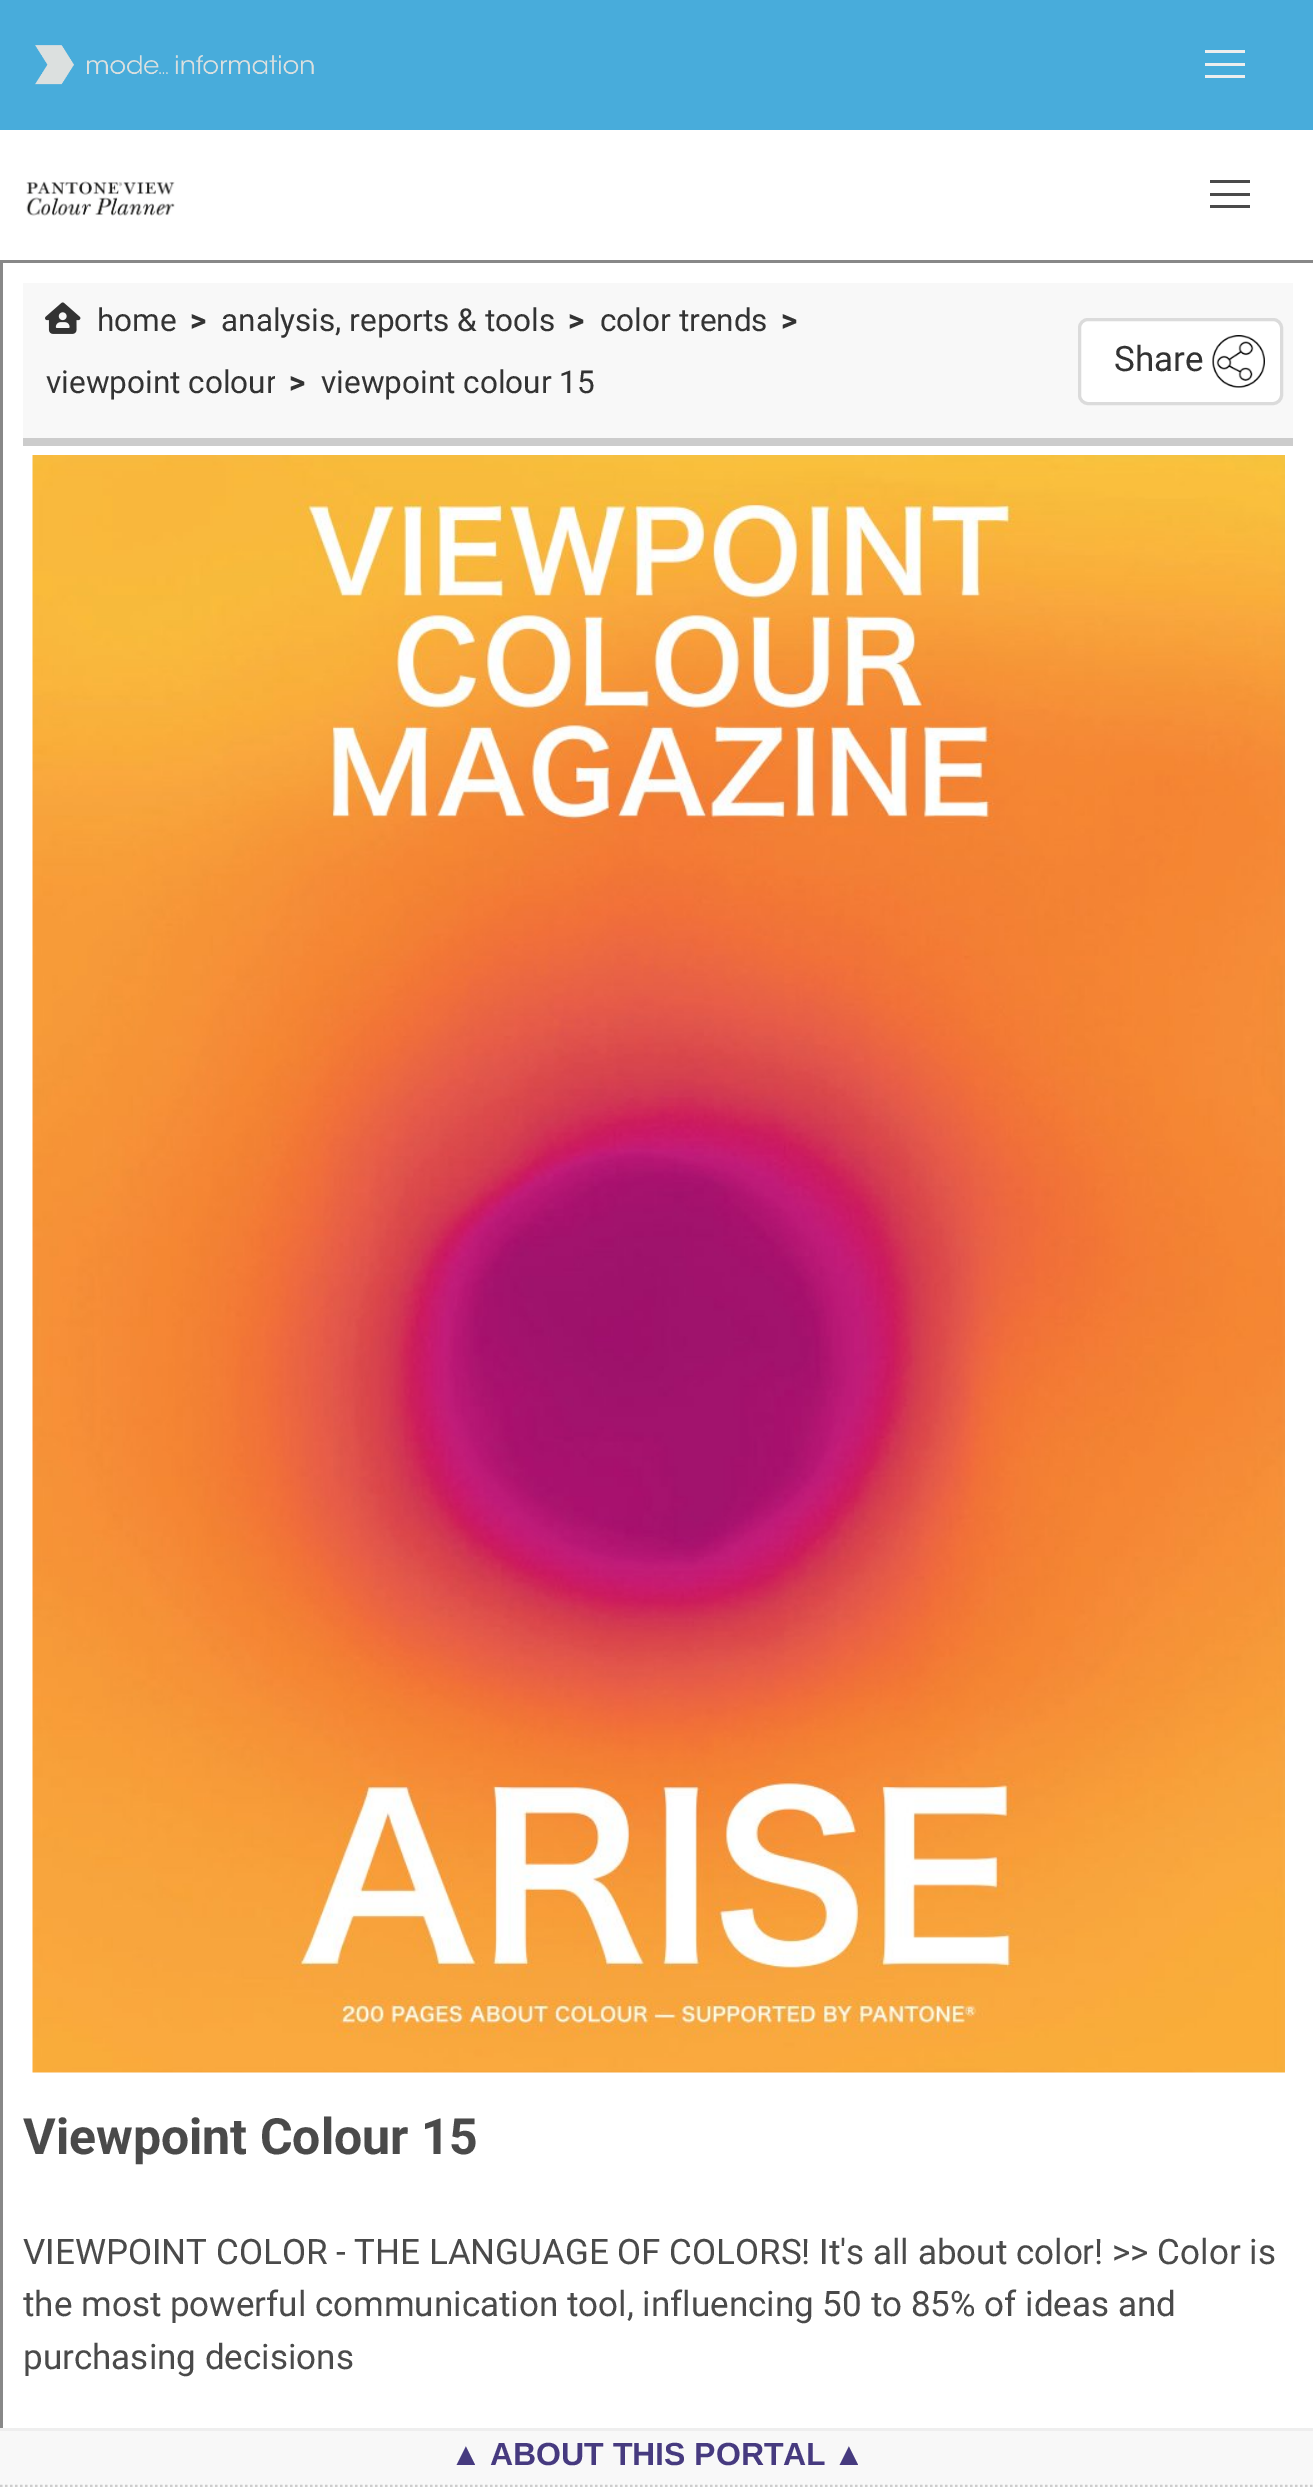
%!PS
<< /PageSize [1313 2487] >> setpagedevice
/m/moveto load def
/l/rlineto load def
/f/fill load def
/s/stroke load def
/q/gsave load def
/Q_/grestore load def
/w/setlinewidth load def
/C { dup -16 bitshift 255 div exch dup -8 bitshift 255 and 255 div exch 255 and 255 div setrgbcolor } def
/F { [ exch dup neg 0 0 3 -1 roll 0 0 ] selectfont } def
/T { moveto show } def
/R { rectfill } def
/Q { 5 dict begin { /r /h /w /y /x } { exch def } forall
  x r add y moveto x w add y 2 copy h add r arct x w add y h add x 1 index r arct
  x y h add x y r arct x y 2 copy exch w add exch r arct closepath end } def
/I { 5 dict begin { /h /w /y /x /name } { exch def } forall
  gsave x y translate w h scale
  w h 8 [w 0 0 h 0 0] name (r) file false 3 colorimage grestore end } def
0 2487 translate 1 -1 scale
4 setmiterlimit
16#FFFFFF C
0 0 1313 2487 R
16#48ACDB C
0 0 1313 130 R
(1.rgb) 35 45 279 40 I
16#EEEEEE C
1205 50 40 3 R
1205 63 40 3 R
1205 75 40 3 R
(2.rgb) 26 181 149 35 I
16#4A4A4A C
1210 180 40 3 R
1210 193 40 3 R
1210 205 40 3 R
16#888888 C
0 260 1313 3 R
0 260 3 2168 R
16#F8F8F8 C
23 283 1270 155 R
16#CCCCCC C
23 438 1270 8 R
(3.rgb) 45 302 36 32 I
/Roboto-Regular 31.5 F
16#333333 C
(home) 97 331 T
/Roboto-Bold 31.5 F
(>) 190 331 T
/Roboto-Regular 31.5 F
(analysis, reports & tools) 221 331 T
/Roboto-Bold 31.5 F
(>) 568 331 T
/Roboto-Regular 31.5 F
(color trends) 600 331 T
/Roboto-Bold 31.5 F
(>) 781 331 T
q
45 360 230 48 rectclip
/Roboto-Regular 31.5 F
(viewpoint colour) 46 393 T
Q_
(>) 289 393 T
/Roboto-Regular 31.5 F
(viewpoint colour 15) 321 393 T
16#FFFFFF C
1079.5 319.5 202 84 8.5 Q q f Q_
16#DBDBDB C
3 w
s
/Roboto-Regular 35 F
16#333333 C
(Share) 1114 371 T
(4.rgb) 1212 335 53 53 I
(5.rgb) 32 455 1253 1618 I
/Roboto-Bold 50 F
16#4A4A4A C
(Viewpoint Colour 15) 23 2154 T
/Roboto-Regular 35 F
(VIEWPOINT COLOR - THE LANGUAGE OF COLORS! It's all about color! >> Color is) 23 2264 T
q
23 445 1270 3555 rectclip
(the most powerful communication tool, influencing 50 to 85% of ideas and) 23 2316 T
Q_
(purchasing decisions) 23 2369 T
16#F8F8F8 C
0 2431 1313 56 R
16#EEEEEE C
0 2428 1313 3 R
16#CCCCCC C
2.5 w
[2.5 2.5] 0 setdash
0 2486 m 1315 0 l s
/LiberationSans-Bold 32 F
16#463A7F C
(▲) 450 2465 T
(ABOUT THIS PORTAL) 490 2465 T
(▲) 833 2465 T
showpage
